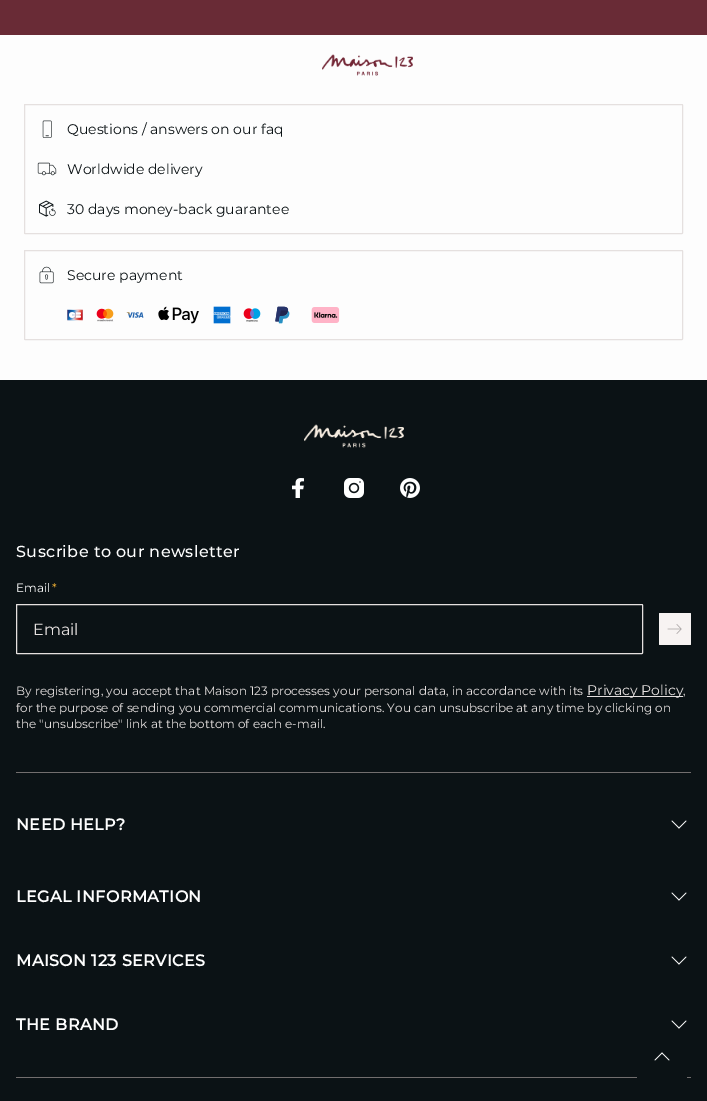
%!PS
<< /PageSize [707 1101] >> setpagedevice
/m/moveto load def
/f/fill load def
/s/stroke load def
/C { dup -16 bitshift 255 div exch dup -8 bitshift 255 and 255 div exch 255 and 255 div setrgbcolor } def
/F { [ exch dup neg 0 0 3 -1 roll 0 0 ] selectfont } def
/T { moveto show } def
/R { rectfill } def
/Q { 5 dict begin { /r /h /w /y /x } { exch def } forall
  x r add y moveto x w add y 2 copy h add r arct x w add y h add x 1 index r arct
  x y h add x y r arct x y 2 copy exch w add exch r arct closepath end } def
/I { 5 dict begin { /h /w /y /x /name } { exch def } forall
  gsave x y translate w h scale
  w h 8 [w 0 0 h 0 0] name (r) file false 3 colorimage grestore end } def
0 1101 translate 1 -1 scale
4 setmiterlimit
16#FDFDFD C
0 0 707 1101 R
16#692B36 C
0 0 707 35 R
(1.rgb) 322 54 91 22 I
16#E5E0DF C
24.5 104.5 658 129 .5 Q s
(2.rgb) 42 120 10 18 I
/Montserrat-Regular 14 F
16#0B1215 C
(Questions / answers on our faq) 67 134 T
(3.rgb) 37 162 20 14 I
(Worldwide delivery) 67 174 T
(4.rgb) 39 200 17 17 I
(30 days money-back guarantee) 67 214 T
16#E5E0DF C
24.5 250.5 658 89 .5 Q s
(5.rgb) 39 266 15 18 I
16#0B1215 C
(Secure payment) 67 280 T
(6.rgb) 67 309 16 12 I
(7.rgb) 96 308 18 14 I
(8.rgb) 126 312 18 6 I
(9.rgb) 158 306 41 18 I
(10.rgb) 213 306 18 18 I
(11.rgb) 243 308 18 14 I
(12.rgb) 275 306 15 18 I
(13.rgb) 311 307 29 16 I
0 380 707 721 R
(14.rgb) 304 424 100 24 I
(15.rgb) 292 478 12 20 I
(16.rgb) 344 478 20 20 I
(17.rgb) 400 478 20 20 I
/Montserrat-Medium 16 F
16#FDFDFD C
16 557 m .4 0 (Suscribe to our newsletter) ashow
/Montserrat-Regular 12 F
(Email) 16 592 T
16#FFBA35 C
(*) 52 592 T
16#E5E0DF C
16.5 604.5 626 49 .5 Q s
/Montserrat-Regular 16 F
(Email) 33 635 T
16#F7F3F2 C
659 613 32 32 1 Q f
(18.rgb) 667 624 15 10 I
/Montserrat-Regular 12 F
16#E5E0DF C
(By registering, you accept that Maison 123 processes your personal data, in accordance with its) 16 695 T
587 696 96 1 R
/Montserrat-Regular 14 F
(Privacy Policy) 587 695 T
/Montserrat-Regular 12 F
(,) 683 695 T
(for the purpose of sending you commercial communications. You can unsubscribe at any time by clicking on) 16 712 T
(the "unsubscribe" link at the bottom of each e-mail.) 16 728 T
16#726E6E C
16 772 675 1 R
16 1077 675 1 R
/Montserrat-Bold 16 F
16#FDFDFD C
16 830 m .4 0 (NEED HELP?) ashow
(19.rgb) 671 820 16 9 I
16 902 m .4 0 (LEGAL INFORMATION) ashow
(19.rgb) 671 892 16 9 I
16 966 m .4 0 (MAISON 123 SERVICES) ashow
(19.rgb) 671 956 16 9 I
16 1030 m .4 0 (THE BRAND) ashow
(19.rgb) 671 1020 16 9 I
16#0B1215 C
637 1077 50 1 R
(20.rgb) 654 1052 16 9 I
showpage
